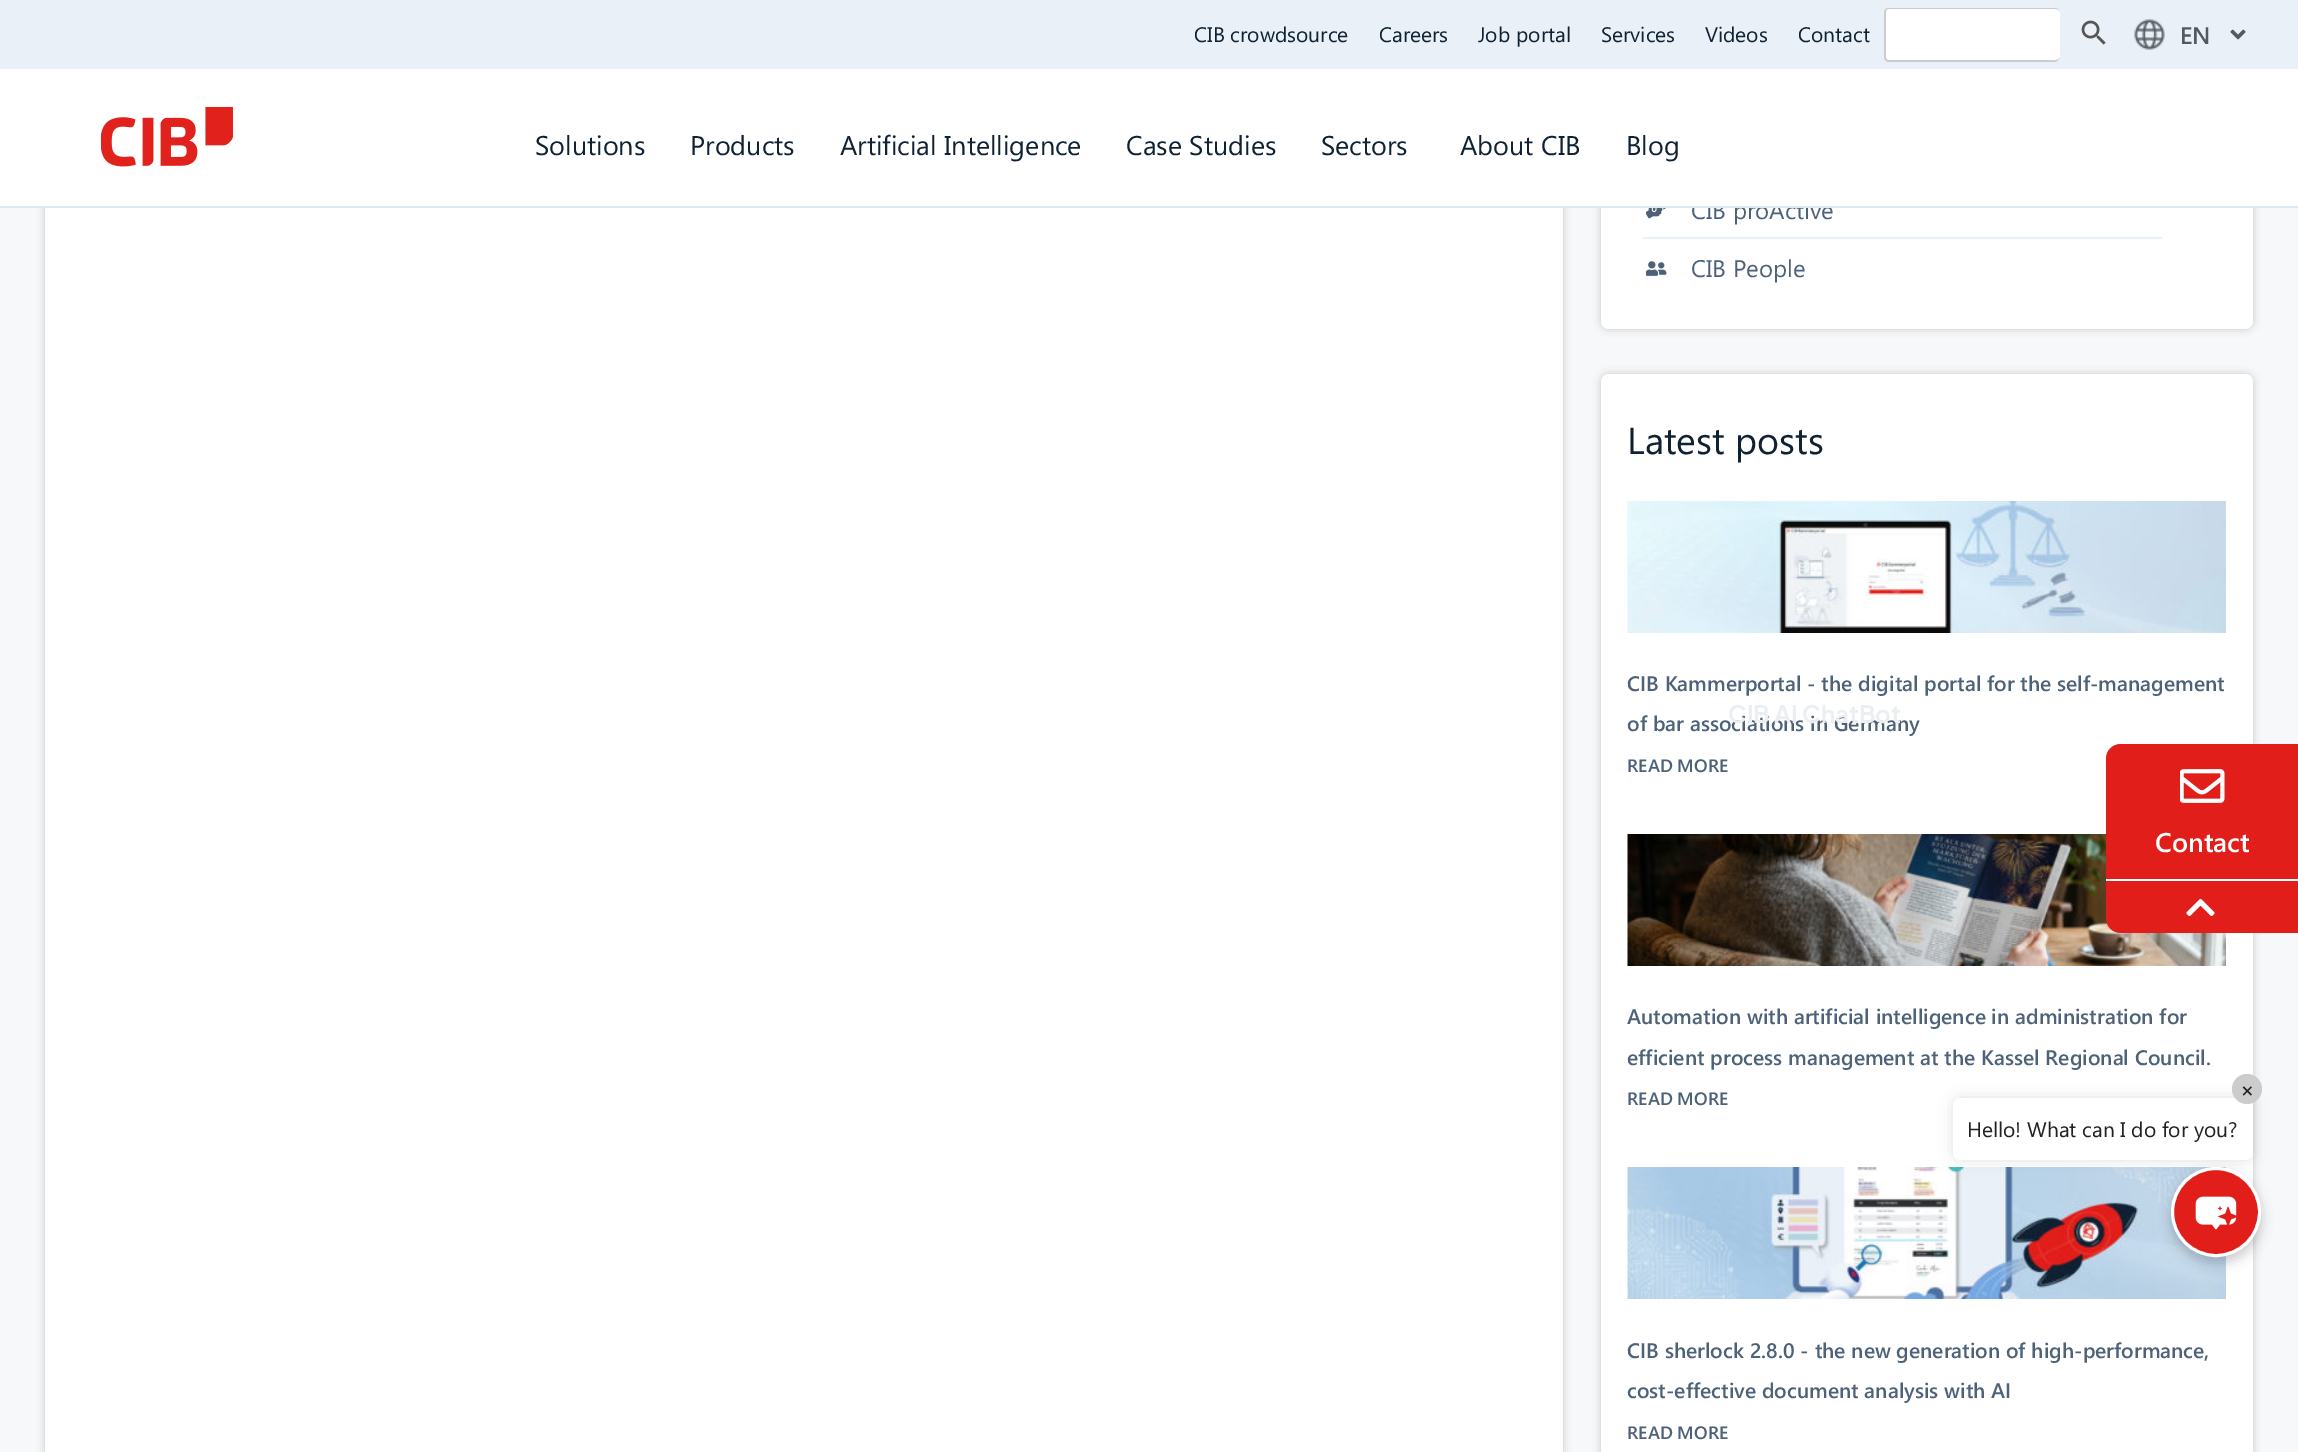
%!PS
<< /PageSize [2298 1452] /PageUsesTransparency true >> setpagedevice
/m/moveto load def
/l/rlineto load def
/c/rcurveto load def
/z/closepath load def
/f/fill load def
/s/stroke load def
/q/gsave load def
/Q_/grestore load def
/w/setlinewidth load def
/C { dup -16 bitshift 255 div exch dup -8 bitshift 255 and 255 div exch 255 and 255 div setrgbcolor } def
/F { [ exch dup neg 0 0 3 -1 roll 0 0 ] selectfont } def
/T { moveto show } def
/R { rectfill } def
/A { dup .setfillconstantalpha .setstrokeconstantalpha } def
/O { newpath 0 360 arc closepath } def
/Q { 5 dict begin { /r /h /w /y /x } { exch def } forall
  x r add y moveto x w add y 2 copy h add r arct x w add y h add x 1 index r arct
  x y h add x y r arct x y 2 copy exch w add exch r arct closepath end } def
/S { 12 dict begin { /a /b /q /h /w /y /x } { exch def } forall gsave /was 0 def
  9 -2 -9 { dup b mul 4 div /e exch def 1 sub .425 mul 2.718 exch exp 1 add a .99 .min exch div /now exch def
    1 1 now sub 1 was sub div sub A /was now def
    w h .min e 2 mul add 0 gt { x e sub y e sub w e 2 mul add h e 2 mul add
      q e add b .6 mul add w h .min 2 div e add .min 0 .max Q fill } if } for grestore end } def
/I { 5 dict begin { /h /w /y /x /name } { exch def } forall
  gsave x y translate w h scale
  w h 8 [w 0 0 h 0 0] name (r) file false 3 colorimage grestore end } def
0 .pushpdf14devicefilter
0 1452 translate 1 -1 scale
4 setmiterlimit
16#F7F8F9 C
0 0 2298 1452 R
16#000000 C
45 -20 1518 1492 8 4 .19 S
1601 -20 652 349 8 4 .19 S
16#FFFFFF C
1601 -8 652 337 8 Q f
16#E9F0F7 C
0 0 2298 69 R
/SegoeUI-Regular 21 F
16#0F2133 C
(CIB crowdsource) 1194 42 T
(Careers) 1379 42 T
(Job portal) 1478 42 T
(Services) 1601 42 T
(Videos) 1705 42 T
(Contact) 1798 42 T
16#FFFFFF C
1884 8 176 54 5 Q f
16#CCCCCC C
1888 8 m 167 0 l 2 0 5 2 5 4 c 0 45 l 0 2 -3 5 -5 5 c -167 0 l -2 0 -4 -3 -4 -5 c 0 -45 l 0 -2 2 -4 4 -4 c z 1888 9 m 167 0 l 2 0 5 1 5 3 c 0 45 l 0 2 -3 3 -5 3 c -167 0 l -1 0 -2 -1 -2 -3 c 0 -45 l 0 -2 1 -3 2 -3 c z eofill
(1.rgb) 2081 20 25 25 I
(2.rgb) 2134 19 31 31 I
/SegoeUI-SemiBold 24 F
16#54595F C
(EN) 2180 44 T
(3.rgb) 2230 29 16 11 I
/SegoeUI-Regular 24 F
16#4D6278 C
(CIB proActive) 1691 219 T
16#FFFFFF C
0 69 2298 137 R
16#DFE7F0 C
0 206 2298 2 R
(4.rgb) 101 107 132 60 I
/SegoeUI-Regular 27 F
16#0F2133 C
(Solutions) 535 155 T
(Products) 690 155 T
(Artificial Intelligence) 840 155 T
(Case Studies) 1126 155 T
(Sectors) 1321 155 T
(About CIB) 1460 155 T
(Blog) 1626 155 T
16#FFFFFF C
45 208 1518 1244 R
(5.rgb) 1646 208 20 11 I
16#E9F0F7 C
1643 237 519 2 R
(6.rgb) 1646 261 21 15 I
/SegoeUI-Regular 24 F
16#4D6278 C
(CIB People) 1691 277 T
16#000000 C
1601 374 652 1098 8 4 .19 S
16#FFFFFF C
1601 374 652 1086 8 Q f
/SegoeUI-Regular 37.5 F
16#0F2133 C
(Latest posts) 1627 454 T
(7.rgb) 1627 501 599 132 I
/SegoeUI-SemiBold 21 F
16#4D6278 C
(CIB Kammerportal - the digital portal for the self-management) 1627 691 T
(of bar associations in Germany) 1627 731 T
/SegoeUI-SemiBold 18 F
(READ MORE) 1627 772 T
(8.rgb) 1627 834 599 132 I
/SegoeUI-SemiBold 21 F
(Automation with artificial intelligence in administration for) 1627 1024 T
(efficient process management at the Kassel Regional Council.) 1627 1065 T
/SegoeUI-SemiBold 18 F
(READ MORE) 1627 1105 T
(9.rgb) 1627 1167 599 132 I
/SegoeUI-SemiBold 21 F
(CIB sherlock 2.8.0 - the new generation of high-performance,) 1627 1358 T
(cost-effective document analysis with AI) 1627 1398 T
/SegoeUI-SemiBold 18 F
(READ MORE) 1627 1439 T
/PlusJakartaSans-Bold 24 F
16#ECEFF1 C
(CIB AI ChatBot) 1728 723 T
16#E11E19 C
2121 744 m 177 0 l 0 135 l -192 0 l 0 -120 l 0 -8.5 6.5 -15 15 -15 c z f
(10.rgb) 2180 769 45 34 I
/SegoeUI-SemiBold 27 F
16#FFFFFF C
(Contact) 2155 852 T
16#E11E19 C
2106 881 m 192 0 l 0 52 l -177 0 l -8.5 0 -15 -6.5 -15 -15 c z f
16#FFFFFF C
2106 879 192 2 R
(11.rgb) 2186 899 29 17 I
16#969696 C
1953 1098 300 62 8 7.5 .3 S
16#FFFFFF C
1953 1098 300 62 8 Q f
16#CCCCCC C
2247 1089 15 O f
/SegoeUI-SemiBold 21 F
16#212121 C
(×) 2240 1097 T
/SegoeUI-Regular 21 F
(Hello! What can I do for you?) 1967 1137 T
16#000000 C
2171 1173 90 90 45 6 .2 S
16#E11E19 C
2216 1212 43.5 O q f Q_
16#FFFFFF C
3 w
s
(12.rgb) 2195 1196 42 34 I
.poppdf14devicefilter showpage
